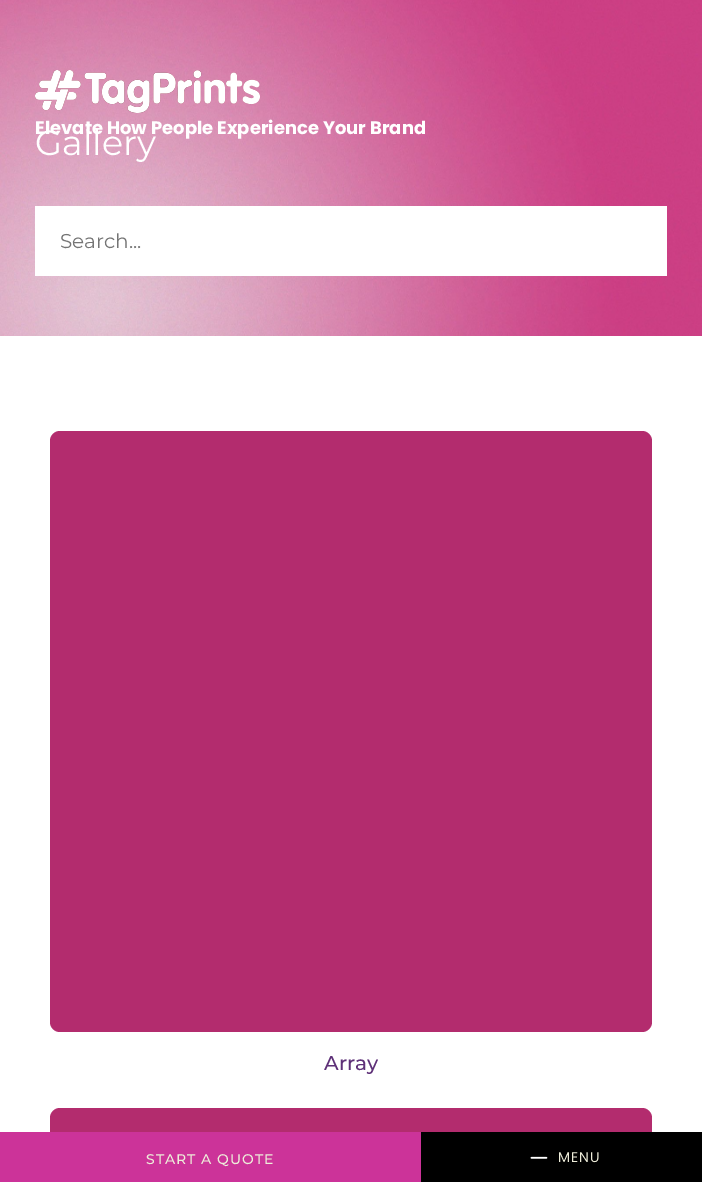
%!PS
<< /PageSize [702 1182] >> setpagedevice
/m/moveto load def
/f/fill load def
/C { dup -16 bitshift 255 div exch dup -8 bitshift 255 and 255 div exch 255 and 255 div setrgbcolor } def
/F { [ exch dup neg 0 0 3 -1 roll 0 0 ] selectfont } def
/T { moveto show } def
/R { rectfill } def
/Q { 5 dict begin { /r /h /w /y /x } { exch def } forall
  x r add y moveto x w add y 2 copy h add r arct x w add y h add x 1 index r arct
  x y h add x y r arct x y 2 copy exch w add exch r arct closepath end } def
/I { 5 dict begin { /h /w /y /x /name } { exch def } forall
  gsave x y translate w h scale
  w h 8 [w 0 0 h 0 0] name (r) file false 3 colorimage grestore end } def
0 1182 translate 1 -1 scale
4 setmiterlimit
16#FFFFFF C
0 0 702 1182 R
(3.rgb) 0 0 702 336 I
(1.rgb) 35 70 225 43 I
/Montserrat-Thin 35 F
(Gallery) 35 155 T
/Poppins-Bold 18 F
(Elevate How People Experience Your Brand) 35 134 T
16#B32C6E C
50 1108 602 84 10 Q f
16#CC3399 C
0 1132 421 50 R
/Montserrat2-Thin 14 F
16#EEEDDA C
146 1164 m 1 0 (START A QUOTE) ashow
16#000000 C
421 1132 281 50 R
(2.rgb) 530 1156 18 3 I
/Poppins-Regular 14 F
16#EEEDDA C
558 1162 m 1 0 (MENU) ashow
16#FFFFFF C
35 206 632 70 R
/Montserrat-Thin 20 F
16#757575 C
(Search...) 60 248 T
16#B32C6E C
50 431 602 601 10 Q f
/Montserrat2-Thin 20 F
16#5E3078 C
(Array) 324 1070 T
showpage
